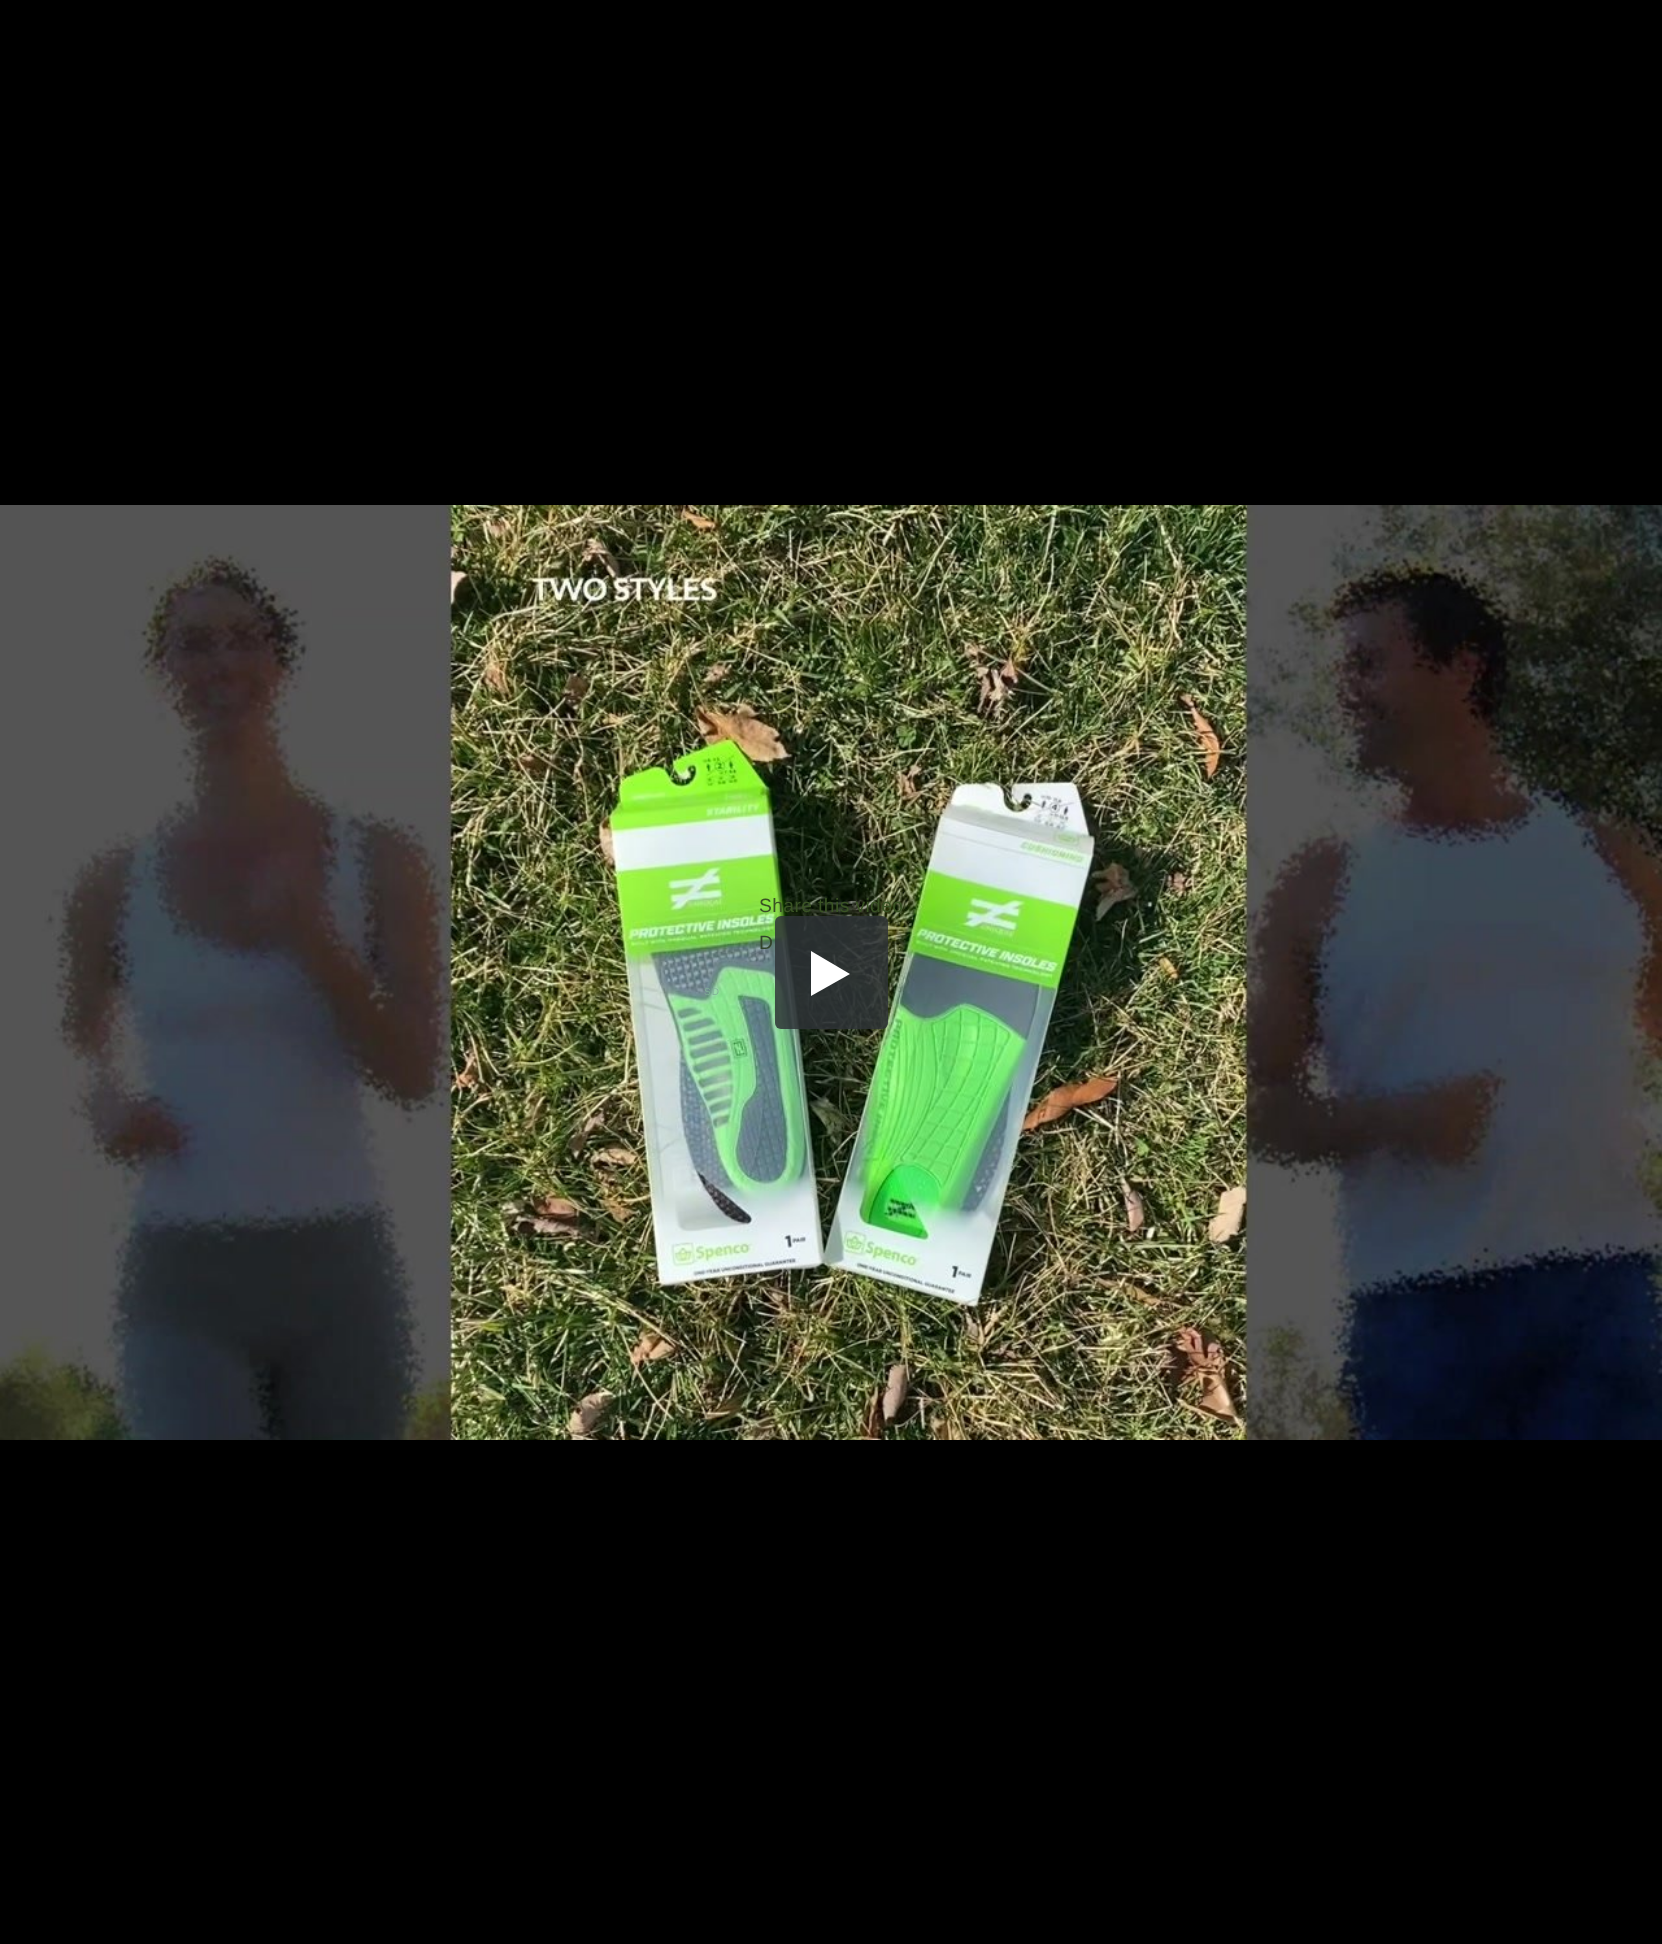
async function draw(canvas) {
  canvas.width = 1662
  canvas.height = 1944
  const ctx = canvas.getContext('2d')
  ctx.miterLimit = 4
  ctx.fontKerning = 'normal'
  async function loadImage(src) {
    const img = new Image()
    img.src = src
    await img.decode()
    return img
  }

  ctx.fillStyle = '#000'
  ctx.fillRect(0, 0, 1662, 1944)
  ctx.drawImage(await loadImage('image0.png'), 0, 505, 1662, 935)
  ctx.letterSpacing = '0.4px'
  ctx.font = '19.25px Liberation Sans'
  ctx.fillStyle = '#3a5325'
  ctx.fillText('Share this video', 759, 912)
  ctx.fillStyle = '#32442b'
  ctx.fillText('D', 759, 949)
  ctx.letterSpacing = '1px'
  ctx.font = '10px Liberation Sans'
  ctx.fillStyle = '#80af97'
  ctx.fillText('SD', 704, 995)
  ctx.fillStyle = '#2f3437d9'
  ctx.beginPath()
  ctx.roundRect(775, 916, 113, 113, 6)
  ctx.fill()
  ctx.fillStyle = '#fff'
  ctx.beginPath()
  ctx.moveTo(811, 951)
  ctx.lineTo(811, 996)
  ctx.lineTo(850, 974)
  ctx.closePath()
  ctx.fill()
}

draw(document.querySelector('canvas'))
